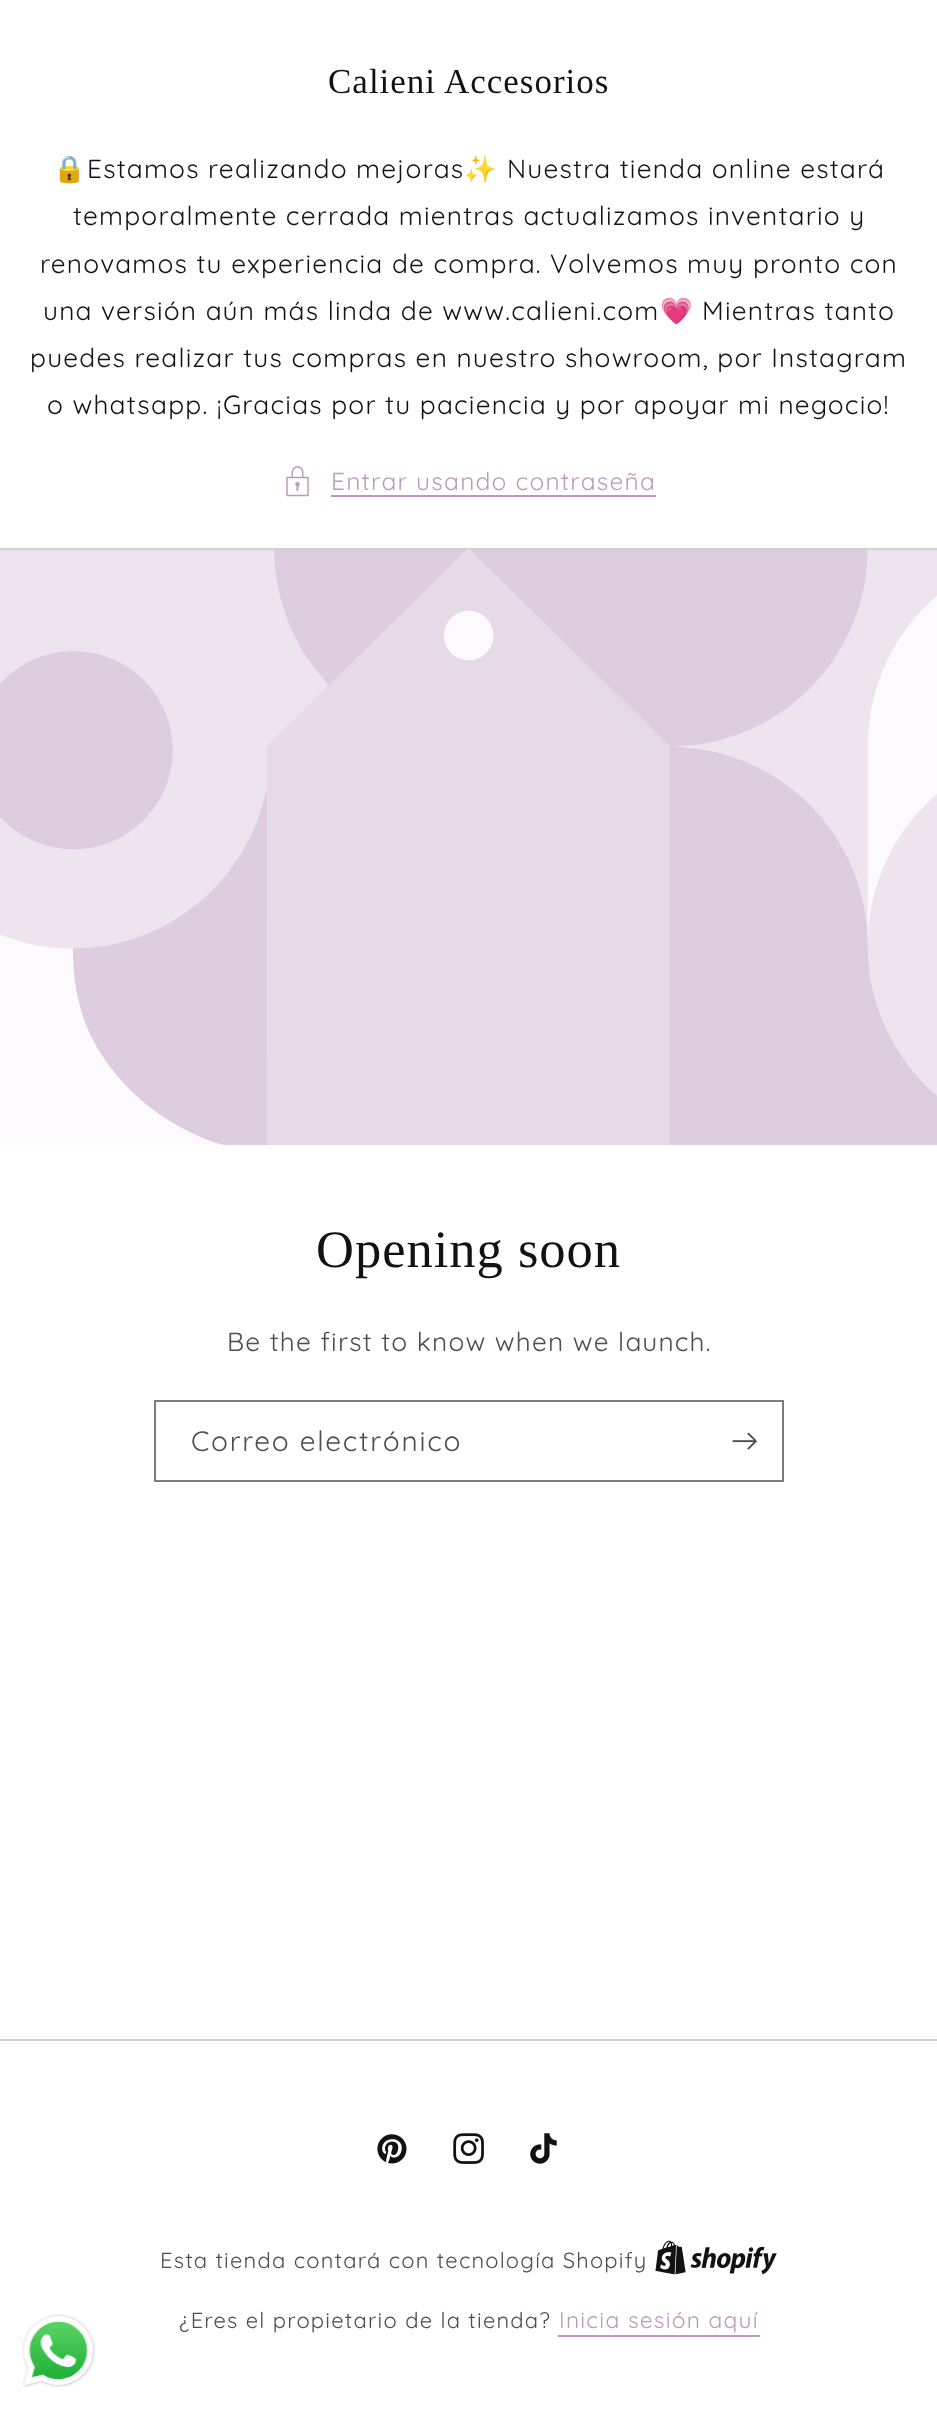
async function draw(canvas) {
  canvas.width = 937
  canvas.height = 2409
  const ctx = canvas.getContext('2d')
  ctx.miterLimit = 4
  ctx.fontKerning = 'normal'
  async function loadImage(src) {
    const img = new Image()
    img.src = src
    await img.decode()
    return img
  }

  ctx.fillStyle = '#fff'
  ctx.fillRect(0, 0, 937, 2409)
  ctx.letterSpacing = '1px'
  ctx.font = '35px Liberation Serif'
  ctx.fillStyle = '#121212'
  ctx.fillText('Calieni Accesorios', 328, 93)
  ctx.letterSpacing = '1.22px'
  ctx.font = '26.25px Noto Color Emoji'
  ctx.fillText('🔒', 53, 178)
  ctx.font = '26.25px Quicksand'
  ctx.fillText('Estamos realizando mejoras', 87, 178)
  ctx.font = '26.25px Noto Color Emoji'
  ctx.fillText('✨', 464, 178)
  ctx.font = '26.25px Quicksand'
  ctx.fillText('Nuestra tienda online estará', 507, 178)
  ctx.fillText('temporalmente cerrada mientras actualizamos inventario y', 73, 225)
  ctx.fillText('renovamos tu experiencia de compra. Volvemos muy pronto con', 40, 273)
  ctx.fillText('una versión aún más linda de www.calieni.com', 43, 320)
  ctx.font = '26.25px Noto Color Emoji'
  ctx.fillText('💗', 660, 320)
  ctx.font = '26.25px Quicksand'
  ctx.fillText('Mientras tanto', 702, 320)
  ctx.fillText('puedes realizar tus compras en nuestro showroom, por Instagram', 30, 367)
  ctx.fillText('o whatsapp. ¡Gracias por tu paciencia y por apoyar mi negocio!', 47, 414)
  ctx.drawImage(await loadImage('image0.png'), 286, 466, 23, 31)
  ctx.font = '24.5px Quicksand'
  ctx.fillStyle = '#be99bf'
  ctx.fillText('Entrar usando contraseña', 331, 490)
  ctx.fillRect(331, 495, 325, 2)
  ctx.fillStyle = '#d0d0d0'
  ctx.fillRect(0, 548, 937, 2)
  ctx.drawImage(await loadImage('image1.png'), 0, 550, 937, 595)
  ctx.letterSpacing = '1px'
  ctx.font = '52.5px Liberation Serif'
  ctx.fillStyle = '#121212'
  ctx.fillText('Opening soon', 316, 1267)
  ctx.letterSpacing = '1.22px'
  ctx.font = '26.25px Quicksand'
  ctx.fillStyle = '#4d4d4d'
  ctx.fillText('Be the first to know when we launch.', 227, 1351)
  ctx.strokeStyle = '#7d7d7d'
  ctx.lineWidth = 2
  ctx.strokeRect(155, 1401, 628, 80)
  ctx.letterSpacing = '1.75px'
  ctx.font = '28px Quicksand'
  ctx.fillText('Correo electrónico', 191, 1451)
  ctx.drawImage(await loadImage('image2.png'), 732, 1432, 25, 18)
  ctx.fillStyle = '#d0d0d0'
  ctx.fillRect(0, 2039, 937, 2)
  ctx.drawImage(await loadImage('image3.png'), 377, 2134, 30, 30)
  ctx.drawImage(await loadImage('image4.png'), 453, 2133, 31, 31)
  ctx.drawImage(await loadImage('image5.png'), 530, 2133, 27, 31)
  ctx.letterSpacing = '1.22px'
  ctx.font = '21.9px Quicksand'
  ctx.fillStyle = '#4d4d4d'
  ctx.fillText('Esta tienda contará con tecnología Shopify', 160, 2268)
  ctx.drawImage(await loadImage('image6.png'), 655, 2240, 122, 35)
  ctx.fillText('¿Eres el propietario de la tienda?', 179, 2328)
  ctx.font = '22.75px Quicksand'
  ctx.fillStyle = '#be99bf'
  ctx.fillText('Inicia sesión aquí', 559, 2328)
  ctx.fillRect(558, 2335, 202, 2)
  ctx.drawImage(await loadImage('image7.png'), 22, 2314, 74, 74)
}

draw(document.querySelector('canvas'))
